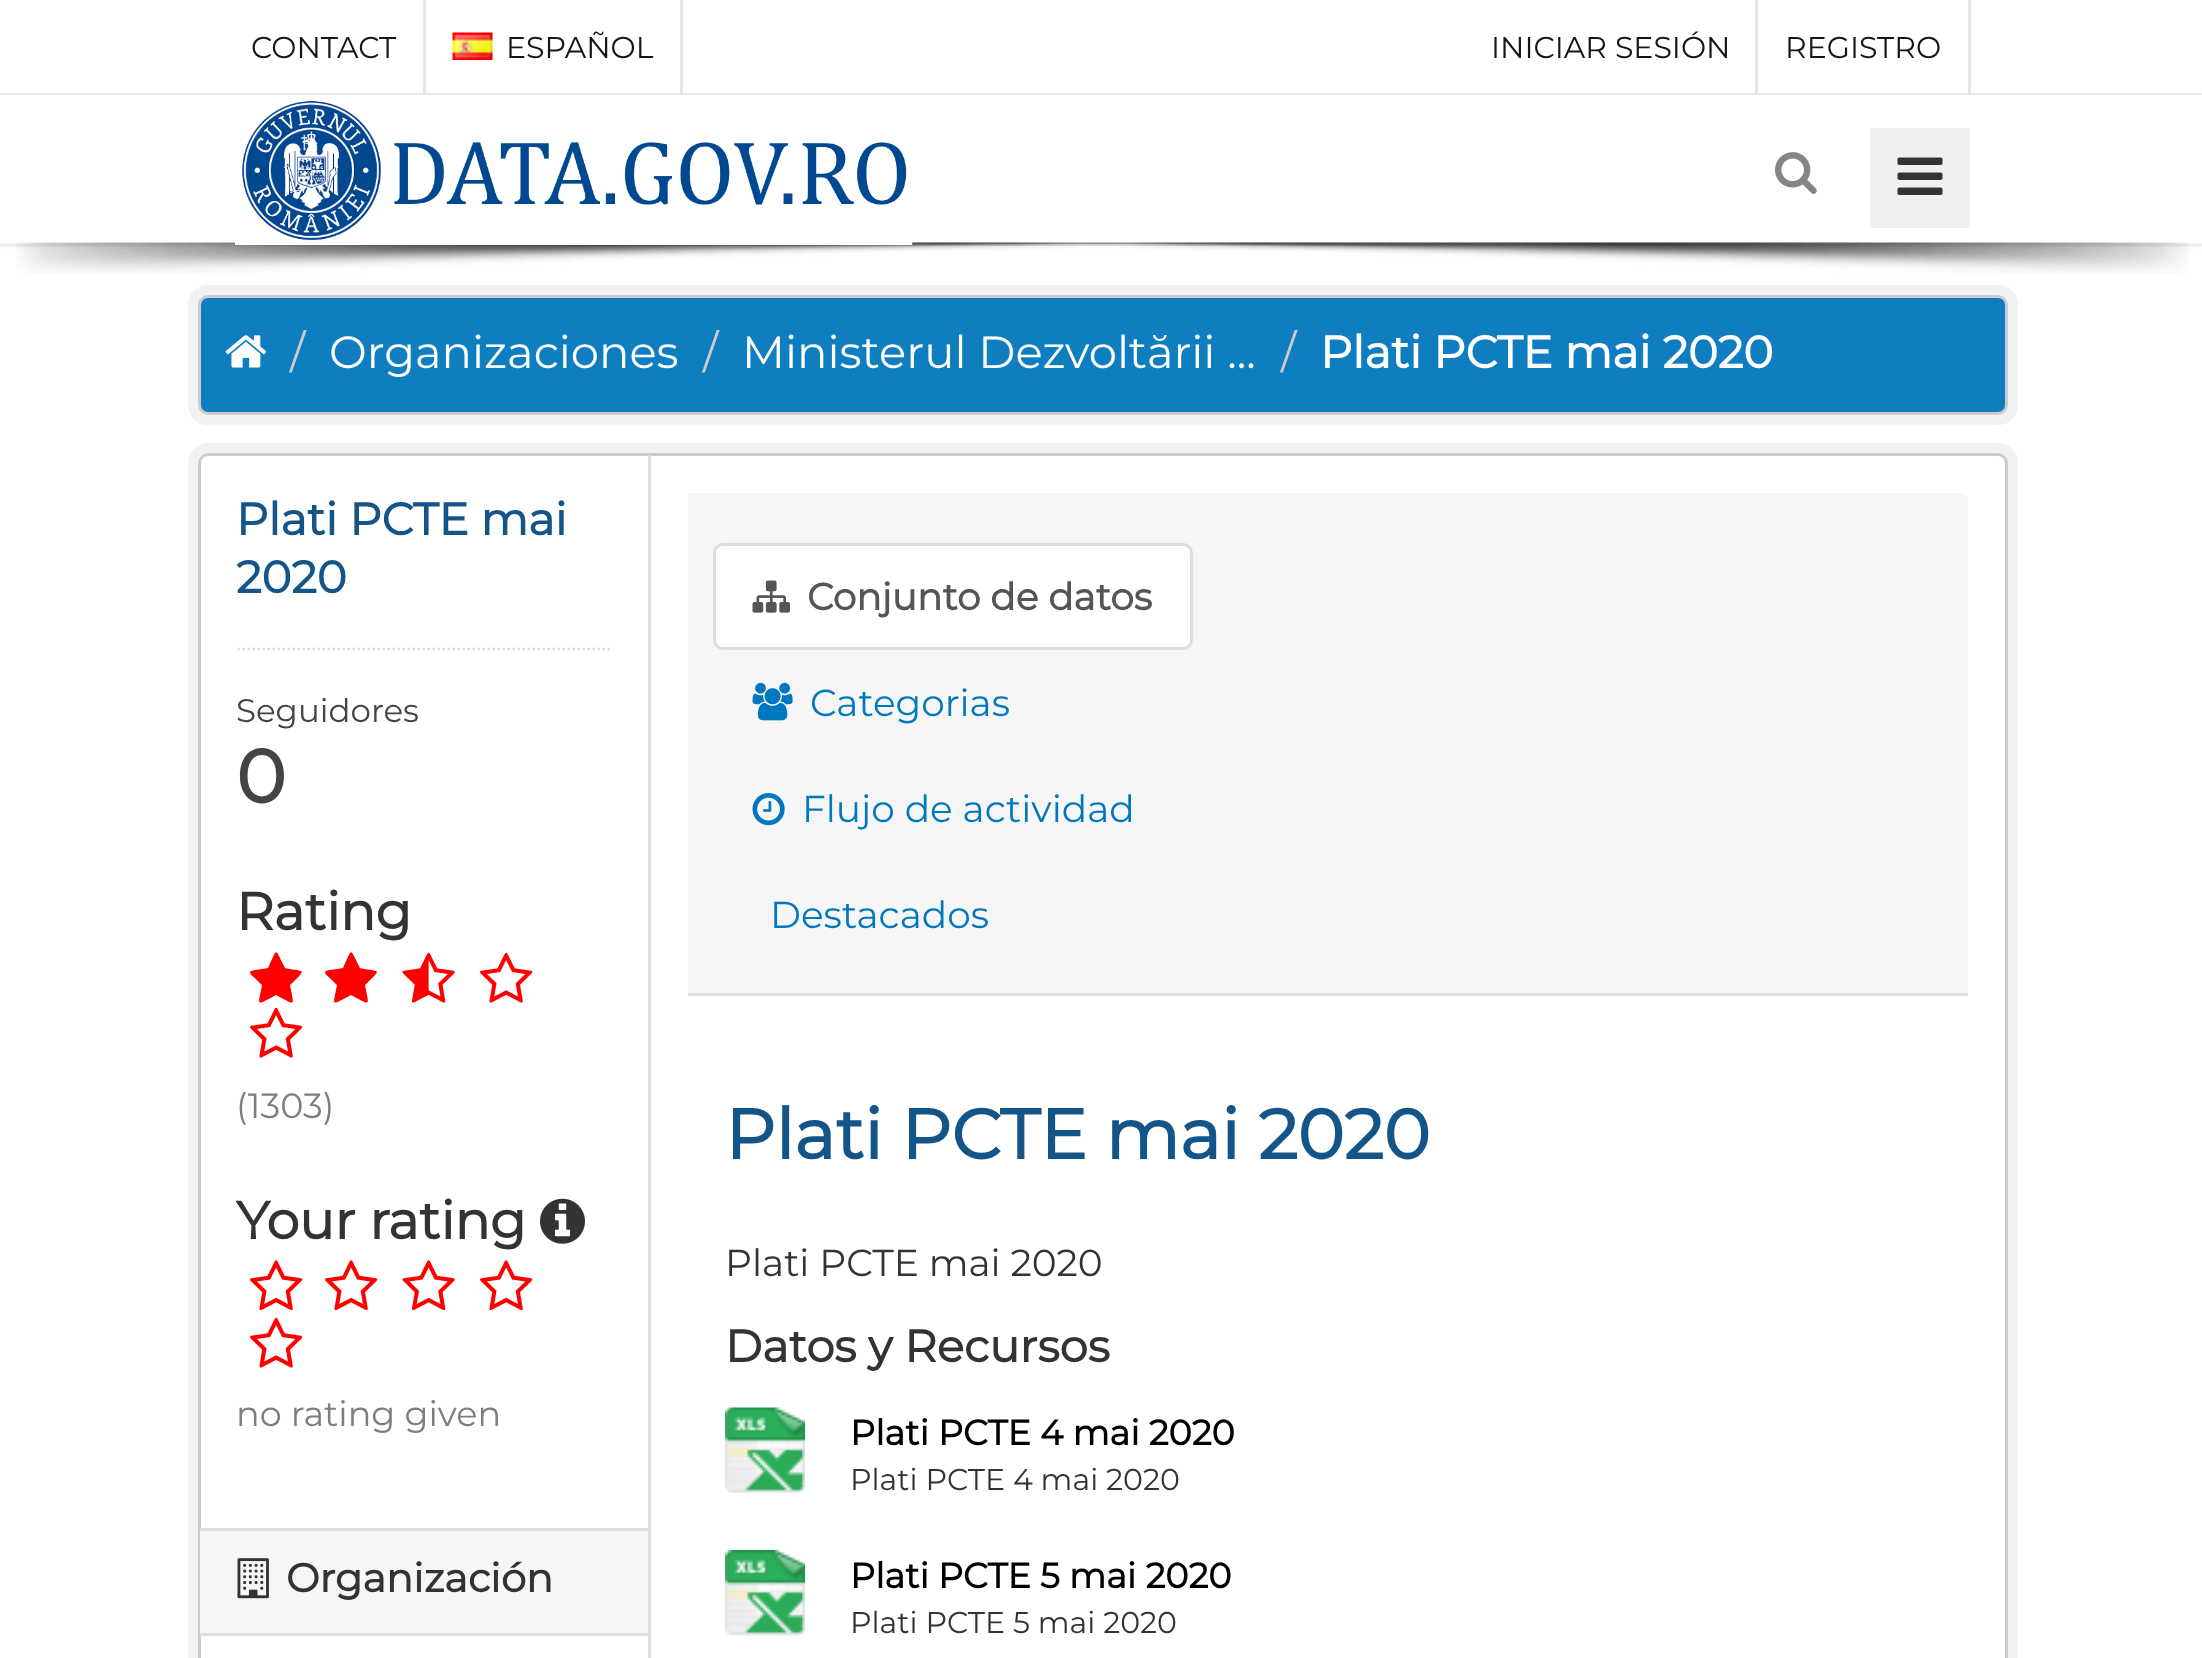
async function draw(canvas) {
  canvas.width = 2202
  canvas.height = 1658
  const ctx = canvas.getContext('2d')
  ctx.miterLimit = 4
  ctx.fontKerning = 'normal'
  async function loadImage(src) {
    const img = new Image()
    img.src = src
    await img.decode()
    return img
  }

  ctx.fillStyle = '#fff'
  ctx.fillRect(0, 0, 2202, 1658)
  ctx.fillStyle = '#f2f2f2'
  ctx.fillRect(0, 93, 2202, 2)
  ctx.fillStyle = '#e6e6e6'
  ctx.fillRect(423, 0, 3, 93)
  ctx.font = '100 30px Montserrat'
  ctx.fillStyle = '#151515'
  ctx.fillText('CONTACT', 251, 58)
  ctx.fillStyle = '#e6e6e6'
  ctx.fillRect(680, 0, 3, 93)
  ctx.drawImage(await loadImage('image0.png'), 452, 32, 41, 28)
  ctx.fillStyle = '#151515'
  ctx.fillText('ESPAÑOL', 506, 58)
  ctx.fillStyle = '#e6e6e6'
  ctx.fillRect(1755, 0, 3, 93)
  ctx.fillStyle = '#151515'
  ctx.fillText('INICIAR SESIÓN', 1491, 58)
  ctx.fillStyle = '#e6e6e6'
  ctx.fillRect(1968, 0, 3, 93)
  ctx.fillStyle = '#151515'
  ctx.fillText('REGISTRO', 1785, 58)
  ctx.fillStyle = '#0000001a'
  ctx.filter = 'blur(2.5px)'
  ctx.beginPath()
  ctx.rect(0, 95, 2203, 150)
  ctx.fill()
  ctx.filter = 'none'
  ctx.fillStyle = '#fff'
  ctx.fillRect(0, 95, 2202, 150)
  ctx.fillStyle = '#0000000d'
  ctx.fillRect(0, 243, 2202, 3)
  ctx.drawImage(await loadImage('image4.png'), 16, 242, 2173, 32)
  ctx.drawImage(await loadImage('image1.png'), 235, 101, 678, 144)
  ctx.drawImage(await loadImage('image2.png'), 1775, 152, 42, 42)
  ctx.fillStyle = '#efefef'
  ctx.fillRect(1870, 128, 100, 100)
  ctx.drawImage(await loadImage('image3.png'), 1897, 157, 46, 38)
  ctx.beginPath()
  ctx.roundRect(193, 290, 1820, 130, 15)
  ctx.strokeStyle = '#f2f2f2'
  ctx.lineWidth = 10
  ctx.stroke()
  ctx.fillStyle = '#0e7ec1'
  ctx.beginPath()
  ctx.roundRect(199.5, 296.5, 1807, 117, 8.5)
  ctx.fill()
  ctx.strokeStyle = '#ccc'
  ctx.lineWidth = 3
  ctx.stroke()
  ctx.drawImage(await loadImage('image5.png'), 225, 335, 42, 33)
  ctx.font = '100 45px Montserrat'
  ctx.fillStyle = '#ccc'
  ctx.fillText('/', 290, 368)
  ctx.fillStyle = '#fff'
  ctx.fillText('Organizaciones', 329, 368)
  ctx.fillStyle = '#ccc'
  ctx.fillText('/', 703, 368)
  ctx.fillStyle = '#fff'
  ctx.fillText('Ministerul Dezvoltării ...', 742, 368)
  ctx.fillStyle = '#ccc'
  ctx.fillText('/', 1281, 368)
  ctx.font = 'bold 45px Montserrat'
  ctx.fillStyle = '#fff'
  ctx.fillText('Plati PCTE mai 2020', 1320, 368)
  ctx.beginPath()
  ctx.roundRect(193, 448, 1820, 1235, 15)
  ctx.strokeStyle = '#f2f2f2'
  ctx.lineWidth = 10
  ctx.stroke()
  ctx.beginPath()
  ctx.roundRect(199.5, 454.5, 1807, 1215, 8.5)
  ctx.fill()
  ctx.strokeStyle = '#ccc'
  ctx.lineWidth = 3
  ctx.stroke()
  ctx.fillStyle = '#135589'
  ctx.fillText('Plati PCTE mai', 236, 535)
  ctx.fillText('2020', 236, 593)
  ctx.beginPath()
  ctx.moveTo(237.5, 649)
  ctx.lineTo(610, 649)
  ctx.strokeStyle = '#ddd'
  ctx.lineWidth = 2.5
  ctx.setLineDash([2.5, 2.5])
  ctx.stroke()
  ctx.font = '100 32.5px Montserrat'
  ctx.fillStyle = '#444'
  ctx.fillText('Seguidores', 236, 722)
  ctx.font = 'bold 75px Montserrat'
  ctx.fillText('0', 236, 803)
  ctx.font = 'bold 52.5px Montserrat'
  ctx.fillStyle = '#333'
  ctx.fillText('Rating', 236, 930)
  ctx.fillStyle = '#f00'
  ctx.beginPath()
  ctx.moveTo(302, 972)
  ctx.bezierCurveTo(302, 974, 292, 983, 290, 985)
  ctx.bezierCurveTo(294, 1007, 297, 1006, 276, 995)
  ctx.bezierCurveTo(255, 1006, 258, 1007, 262, 985)
  ctx.bezierCurveTo(246, 969, 244, 972, 268, 968)
  ctx.bezierCurveTo(278, 947, 274, 947, 285, 968)
  ctx.bezierCurveTo(287, 969, 302, 970, 302, 972)
  ctx.closePath()
  ctx.fill()
  ctx.beginPath()
  ctx.moveTo(377, 972)
  ctx.bezierCurveTo(377, 974, 367, 983, 365, 985)
  ctx.bezierCurveTo(369, 1007, 372, 1006, 351, 995)
  ctx.bezierCurveTo(330, 1006, 333, 1007, 337, 985)
  ctx.bezierCurveTo(321, 969, 319, 972, 343, 968)
  ctx.bezierCurveTo(353, 947, 349, 947, 360, 968)
  ctx.bezierCurveTo(362, 969, 377, 970, 377, 972)
  ctx.closePath()
  ctx.fill()
  ctx.drawImage(await loadImage('image6.png'), 402, 952, 53, 51)
  ctx.drawImage(await loadImage('image7.png'), 480, 952, 53, 51)
  ctx.drawImage(await loadImage('image7.png'), 250, 1007, 53, 51)
  ctx.font = '100 35px Montserrat'
  ctx.fillStyle = '#7c7c82'
  ctx.fillText('(1303)', 236, 1118)
  ctx.font = 'bold 52.5px Montserrat'
  ctx.fillStyle = '#333'
  ctx.fillText('Your rating', 236, 1239)
  ctx.drawImage(await loadImage('image8.png'), 540, 1198, 45, 46)
  ctx.drawImage(await loadImage('image9.png'), 250, 1260, 53, 51)
  ctx.drawImage(await loadImage('image9.png'), 325, 1260, 53, 51)
  ctx.drawImage(await loadImage('image10.png'), 402, 1260, 53, 51)
  ctx.drawImage(await loadImage('image9.png'), 480, 1260, 53, 51)
  ctx.drawImage(await loadImage('image7.png'), 250, 1317, 53, 51)
  ctx.font = '100 35px Montserrat'
  ctx.fillStyle = '#7c7c82'
  ctx.fillText('no rating given', 236, 1426)
  ctx.fillStyle = '#f6f6f6'
  ctx.fillRect(200, 1531, 448, 102)
  ctx.fillStyle = '#ddd'
  ctx.fillRect(200, 1528, 448, 3)
  ctx.fillRect(200, 1633, 448, 3)
  ctx.drawImage(await loadImage('image11.png'), 237, 1558, 32, 41)
  ctx.font = 'bold 40px Montserrat'
  ctx.fillStyle = '#333'
  ctx.fillText('Organización', 286, 1592)
  ctx.fillStyle = '#ddd'
  ctx.fillRect(648, 455, 3, 1203)
  ctx.fillStyle = '#f6f6f6'
  ctx.beginPath()
  ctx.roundRect(688, 493, 1280, 502, [0, 8, 0, 0])
  ctx.fill()
  ctx.fillStyle = '#ddd'
  ctx.fillRect(688, 993, 1280, 3)
  ctx.fillStyle = '#fff'
  ctx.beginPath()
  ctx.roundRect(714.5, 544.5, 477, 104, 8.5)
  ctx.fill()
  ctx.lineWidth = 3
  ctx.setLineDash([])
  ctx.stroke()
  ctx.drawImage(await loadImage('image12.png'), 752, 580, 38, 33)
  ctx.font = 'bold 37.5px Montserrat'
  ctx.fillStyle = '#555'
  ctx.fillText('Conjunto de datos', 807, 610)
  ctx.drawImage(await loadImage('image13.png'), 752, 682, 41, 39)
  ctx.font = '100 37.5px Montserrat'
  ctx.fillStyle = '#0077be'
  ctx.fillText('Categorias', 810, 716)
  ctx.drawImage(await loadImage('image14.png'), 752, 793, 33, 33)
  ctx.fillText('Flujo de actividad', 802, 822)
  ctx.fillText('Destacados', 770, 928)
  ctx.font = 'bold 70px Montserrat'
  ctx.fillStyle = '#135589'
  ctx.fillText('Plati PCTE mai 2020', 725, 1159)
  ctx.font = '100 37.5px Montserrat'
  ctx.fillStyle = '#333'
  ctx.fillText('Plati PCTE mai 2020', 725, 1276)
  ctx.font = 'bold 45px Montserrat'
  ctx.fillText('Datos y Recursos', 725, 1362)
  ctx.drawImage(await loadImage('image15.png'), 725, 1407, 80, 86)
  ctx.font = 'bold 35px Montserrat'
  ctx.fillStyle = '#000'
  ctx.fillText('Plati PCTE 4 mai 2020', 850, 1445)
  ctx.font = '100 30px Montserrat'
  ctx.fillStyle = '#333'
  ctx.fillText('Plati PCTE 4 mai 2020', 850, 1490)
  ctx.drawImage(await loadImage('image16.png'), 725, 1550, 80, 86)
  ctx.font = 'bold 35px Montserrat'
  ctx.fillStyle = '#000'
  ctx.fillText('Plati PCTE 5 mai 2020', 850, 1588)
  ctx.font = '100 30px Montserrat'
  ctx.fillStyle = '#333'
  ctx.fillText('Plati PCTE 5 mai 2020', 850, 1633)
}

draw(document.querySelector('canvas'))
